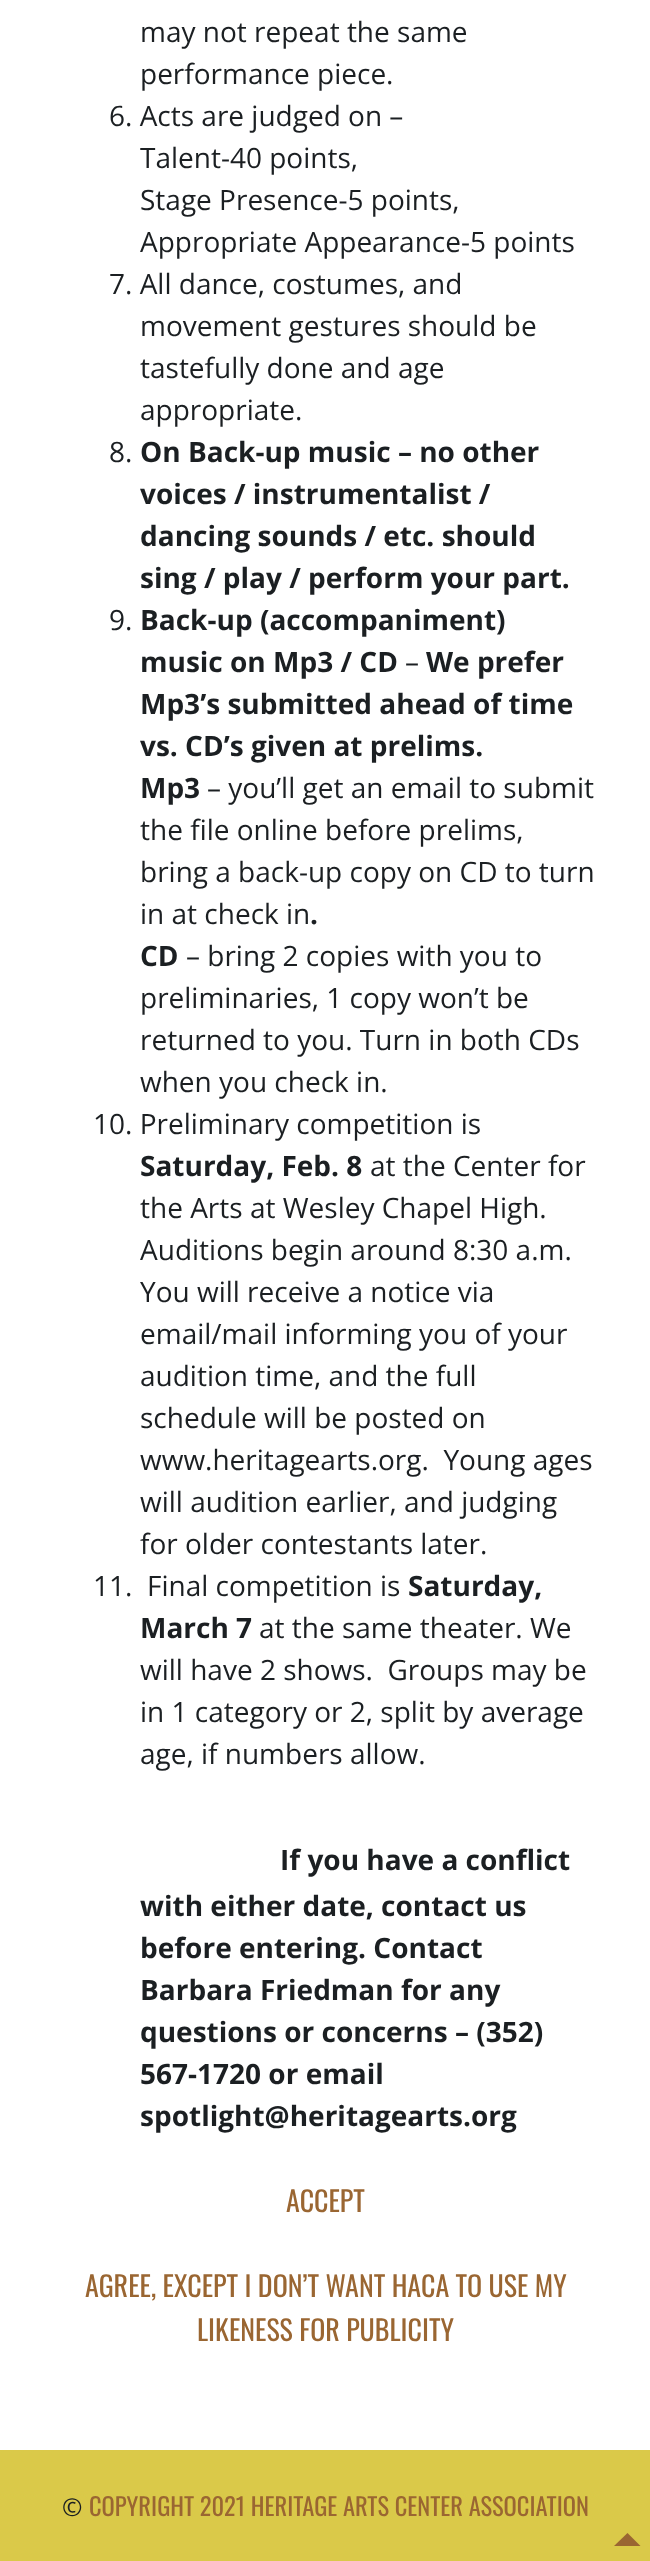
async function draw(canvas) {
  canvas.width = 650
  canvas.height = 2561
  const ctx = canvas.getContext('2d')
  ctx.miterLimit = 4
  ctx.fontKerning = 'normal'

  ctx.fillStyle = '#fff'
  ctx.fillRect(0, 0, 650, 2561)
  ctx.font = '28px Open Sans'
  ctx.fillStyle = '#1b1f22'
  ctx.fillText('may not repeat the same', 140, 42)
  ctx.fillText('performance piece.', 140, 84)
  ctx.fillText('6. Acts are judged on –', 109, 126)
  ctx.fillText('Talent-40 points,', 140, 168)
  ctx.fillText('Stage Presence-5 points,', 140, 210)
  ctx.fillText('Appropriate Appearance-5 points', 140, 252)
  ctx.fillText('7. All dance, costumes, and', 109, 294)
  ctx.fillText('movement gestures should be', 140, 336)
  ctx.fillText('tastefully done and age', 140, 378)
  ctx.fillText('appropriate.', 140, 420)
  ctx.fillText('8.', 109, 462)
  ctx.font = 'bold 28px Open Sans'
  ctx.fillText('On Back-up music – no other', 140, 462)
  ctx.fillText('voices / instrumentalist /', 140, 504)
  ctx.fillText('dancing sounds / etc. should', 140, 546)
  ctx.fillText('sing / play / perform your part.', 140, 588)
  ctx.font = '28px Open Sans'
  ctx.fillText('9.', 109, 630)
  ctx.font = 'bold 28px Open Sans'
  ctx.fillText('Back-up (accompaniment)', 140, 630)
  ctx.fillText('music on Mp3 / CD', 140, 672)
  ctx.font = '28px Open Sans'
  ctx.fillText('–', 405, 672)
  ctx.font = 'bold 28px Open Sans'
  ctx.fillText('We prefer', 426, 672)
  ctx.fillText('Mp3’s submitted ahead of time', 140, 714)
  ctx.fillText('vs. CD’s given at prelims.', 140, 756)
  ctx.fillText('Mp3', 140, 798)
  ctx.font = '28px Open Sans'
  ctx.fillText('– you’ll get an email to submit', 207, 798)
  ctx.fillText('the file online before prelims,', 140, 840)
  ctx.fillText('bring a back-up copy on CD to turn', 140, 882)
  ctx.fillText('in at check in', 140, 924)
  ctx.font = 'bold 28px Open Sans'
  ctx.fillText('.', 310, 924)
  ctx.fillText('CD', 140, 966)
  ctx.font = '28px Open Sans'
  ctx.fillText('– bring 2 copies with you to', 186, 966)
  ctx.fillText('preliminaries, 1 copy won’t be', 140, 1008)
  ctx.fillText('returned to you. Turn in both CDs', 140, 1050)
  ctx.fillText('when you check in.', 140, 1092)
  ctx.fillText('10. Preliminary competition is', 93, 1134)
  ctx.font = 'bold 28px Open Sans'
  ctx.fillText('Saturday, Feb. 8', 140, 1176)
  ctx.font = '28px Open Sans'
  ctx.fillText('at the Center for', 370, 1176)
  ctx.fillText('the Arts at Wesley Chapel High.', 140, 1218)
  ctx.fillText('Auditions begin around 8:30 a.m.', 140, 1260)
  ctx.fillText('You will receive a notice via', 140, 1302)
  ctx.fillText('email/mail informing you of your', 140, 1344)
  ctx.fillText('audition time, and the full', 140, 1386)
  ctx.fillText('schedule will be posted on', 140, 1428)
  ctx.fillText('www.heritagearts.org.  Young ages', 140, 1470)
  ctx.fillText('will audition earlier, and judging', 140, 1512)
  ctx.fillText('for older contestants later.', 140, 1554)
  ctx.fillText('11.', 93, 1596)
  ctx.fillText('Final competition is', 147, 1596)
  ctx.font = 'bold 28px Open Sans'
  ctx.fillText('Saturday,', 408, 1596)
  ctx.fillText('March 7', 140, 1638)
  ctx.font = '28px Open Sans'
  ctx.fillText('at the same theater. We', 259, 1638)
  ctx.fillText('will have 2 shows.  Groups may be', 140, 1680)
  ctx.fillText('in 1 category or 2, split by average', 140, 1722)
  ctx.fillText('age, if numbers allow.', 140, 1764)
  ctx.font = 'bold 28px Open Sans'
  ctx.fillText('If you have a conflict', 280, 1870)
  ctx.fillText('with either date, contact us', 140, 1916)
  ctx.fillText('before entering. Contact', 140, 1958)
  ctx.fillText('Barbara Friedman for any', 140, 2000)
  ctx.fillText('questions or concerns – (352)', 140, 2042)
  ctx.fillText('567-1720 or email', 140, 2084)
  ctx.fillText('spotlight@heritagearts.org', 140, 2126)
  ctx.font = '28px Oswald'
  ctx.fillStyle = '#9a6632'
  ctx.fillText('ACCEPT', 286, 2212)
  ctx.fillText('AGREE, EXCEPT I DON’T WANT HACA TO USE MY', 85, 2297)
  ctx.fillText('LIKENESS FOR PUBLICITY', 197, 2341)
  ctx.fillStyle = '#dac949'
  ctx.fillRect(0, 2450, 650, 111)
  ctx.font = '24.5px Open Sans'
  ctx.fillStyle = '#1b1f22'
  ctx.fillText('©', 62, 2516)
  ctx.font = '24.5px Oswald'
  ctx.fillStyle = '#9a6632'
  ctx.fillText('COPYRIGHT 2021 HERITAGE ARTS CENTER ASSOCIATION', 89, 2516)
  ctx.beginPath()
  ctx.moveTo(640.5, 2546)
  ctx.lineTo(614, 2546)
  ctx.lineTo(627.5, 2533)
  ctx.closePath()
  ctx.fill()
}

draw(document.querySelector('canvas'))
